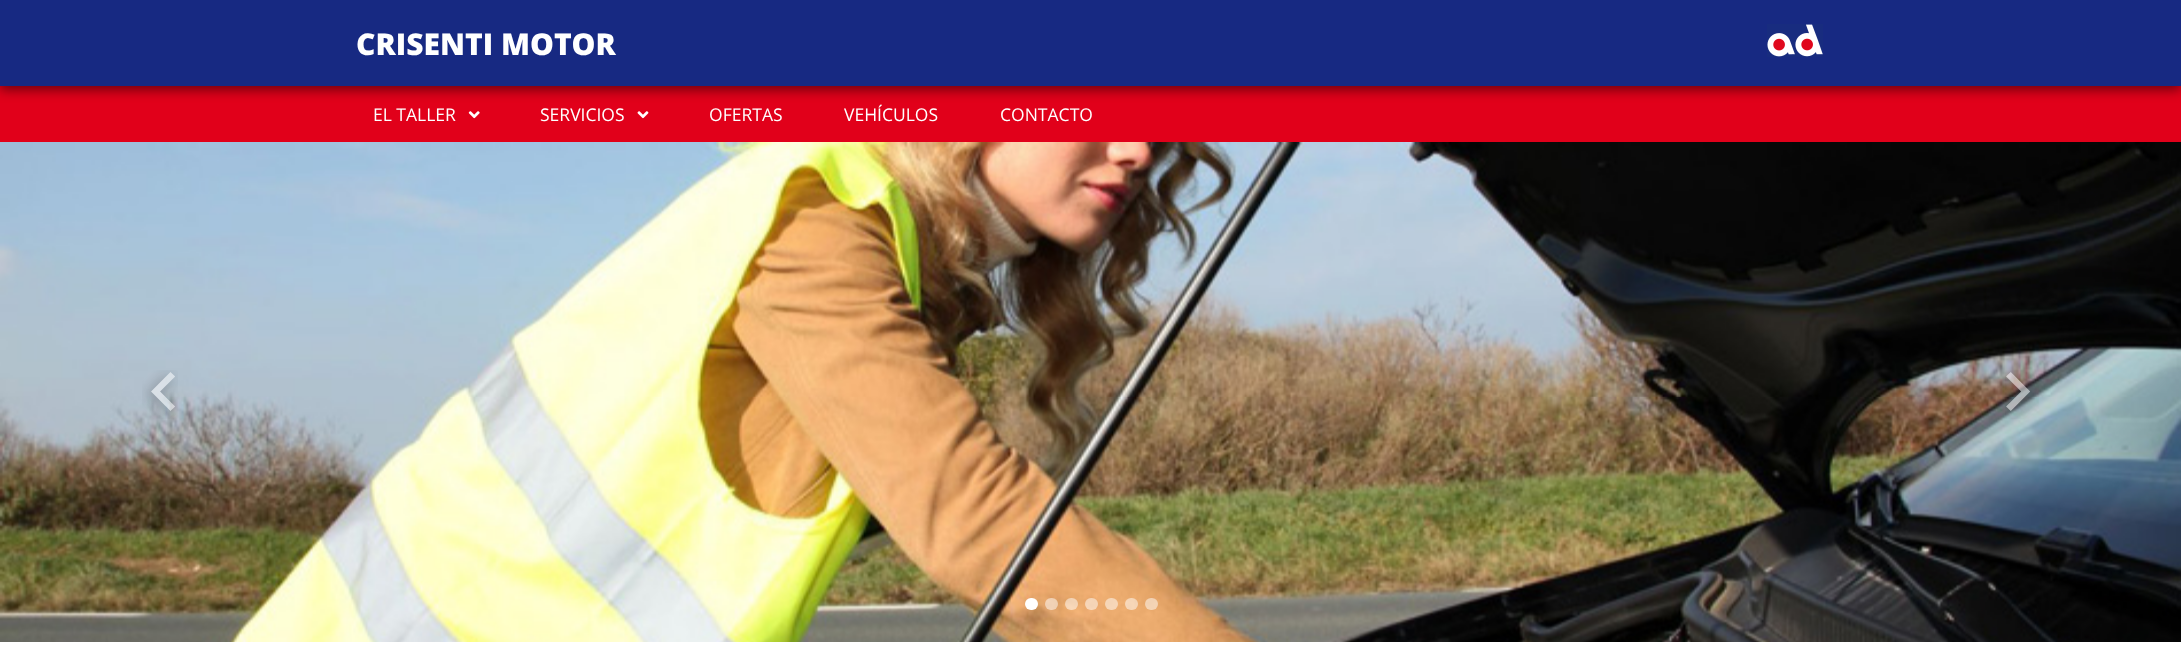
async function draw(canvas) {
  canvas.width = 2181
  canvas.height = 656
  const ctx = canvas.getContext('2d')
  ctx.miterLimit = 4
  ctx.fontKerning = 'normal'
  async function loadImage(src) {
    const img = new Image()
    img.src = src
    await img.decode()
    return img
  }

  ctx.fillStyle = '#fff'
  ctx.fillRect(0, 0, 2181, 656)
  ctx.fillStyle = '#e1001a'
  ctx.fillRect(0, 86, 2181, 56)
  ctx.fillStyle = '#00000080'
  ctx.filter = 'blur(6px)'
  ctx.beginPath()
  ctx.rect(0, 4, 2181, 86)
  ctx.fill()
  ctx.filter = 'none'
  ctx.fillStyle = '#172982'
  ctx.fillRect(0, 0, 2181, 86)
  ctx.font = '800 30px Open Sans'
  ctx.fillStyle = '#fff'
  ctx.fillText('CRISENTI MOTOR', 356, 55)
  ctx.drawImage(await loadImage('image0.png'), 1767, 24, 56, 33)
  ctx.font = '17.5px Open Sans'
  ctx.fillText('EL TALLER', 373, 121)
  ctx.drawImage(await loadImage('image1.png'), 468, 111, 12, 8)
  ctx.fillText('SERVICIOS', 540, 121)
  ctx.drawImage(await loadImage('image2.png'), 637, 111, 12, 8)
  ctx.fillText('OFERTAS', 709, 121)
  ctx.fillText('VEHÍCULOS', 844, 121)
  ctx.fillText('CONTACTO', 1000, 121)
  ctx.drawImage(await loadImage('image3.png'), 0, 142, 2181, 500)
  ctx.drawImage(await loadImage('image4.png'), 142, 370, 36, 49)
  ctx.drawImage(await loadImage('image5.png'), 2005, 370, 34, 49)
  ctx.beginPath()
  ctx.roundRect(1025, 598, 13, 12, 6)
  ctx.fill()
  ctx.fillStyle = '#ffffff80'
  ctx.beginPath()
  ctx.roundRect(1045, 598, 13, 12, 6)
  ctx.fill()
  ctx.beginPath()
  ctx.roundRect(1065, 598, 13, 12, 6)
  ctx.fill()
  ctx.beginPath()
  ctx.roundRect(1085, 598, 13, 12, 6)
  ctx.fill()
  ctx.beginPath()
  ctx.roundRect(1105, 598, 13, 12, 6)
  ctx.fill()
  ctx.beginPath()
  ctx.roundRect(1125, 598, 13, 12, 6)
  ctx.fill()
  ctx.beginPath()
  ctx.roundRect(1145, 598, 13, 12, 6)
  ctx.fill()
}

draw(document.querySelector('canvas'))
